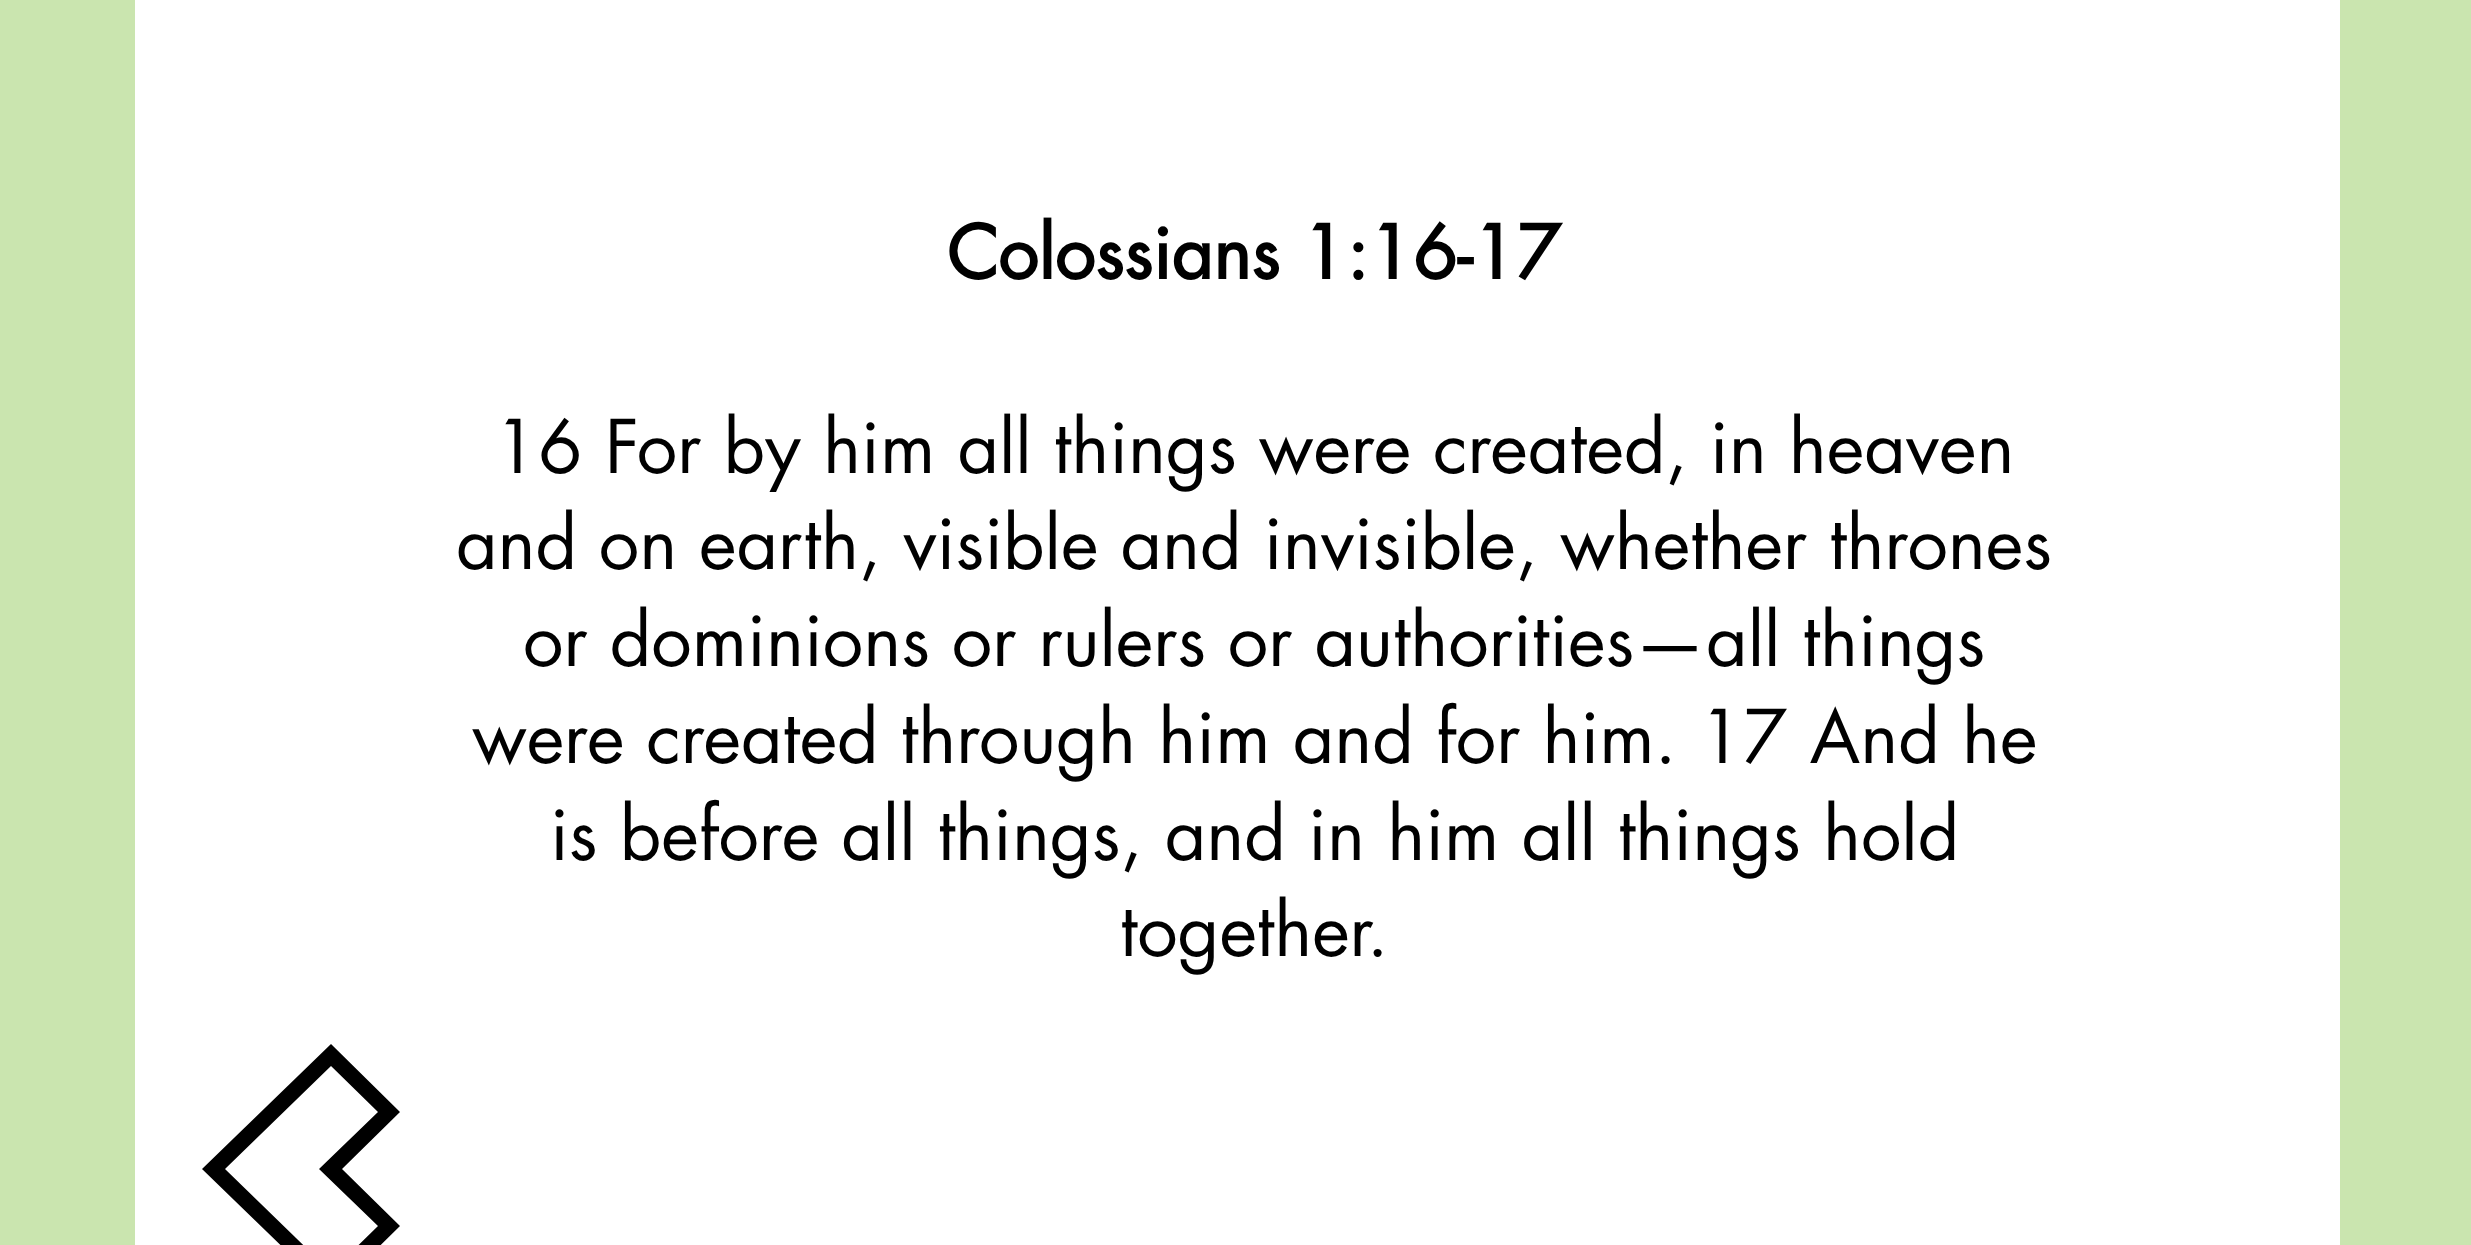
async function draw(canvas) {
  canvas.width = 2471
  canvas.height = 1245
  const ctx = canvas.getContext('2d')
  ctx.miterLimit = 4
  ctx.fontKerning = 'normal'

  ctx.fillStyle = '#cae5af'
  ctx.fillRect(0, 0, 2471, 1245)
  ctx.fillStyle = '#fff'
  ctx.fillRect(135, 0, 2205, 1245)
  ctx.font = 'bold 72px futura'
  ctx.fillStyle = '#000'
  ctx.fillText('Colossians 1:16-17', 947, 279)
  ctx.font = '72px futura'
  ctx.fillText('16 For by him all things were created, in heaven', 494, 473)
  ctx.fillText('and on earth, visible and invisible, whether thrones', 456, 569)
  ctx.fillText('or dominions or rulers or authorities—all things', 523, 666)
  ctx.fillText('were created through him and for him. 17 And he', 472, 763)
  ctx.fillText('is before all things, and in him all things hold', 550, 860)
  ctx.fillText('together.', 1120, 956)
  ctx.beginPath()
  ctx.moveTo(400, 1112)
  ctx.lineTo(342, 1169)
  ctx.lineTo(400, 1226)
  ctx.lineTo(331, 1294)
  ctx.lineTo(202, 1169)
  ctx.lineTo(331, 1044)
  ctx.closePath()
  ctx.moveTo(319, 1169)
  ctx.lineTo(378, 1112)
  ctx.lineTo(331, 1066)
  ctx.lineTo(225, 1169)
  ctx.lineTo(331, 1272)
  ctx.lineTo(378, 1226)
  ctx.closePath()
  ctx.fill()
}

draw(document.querySelector('canvas'))
